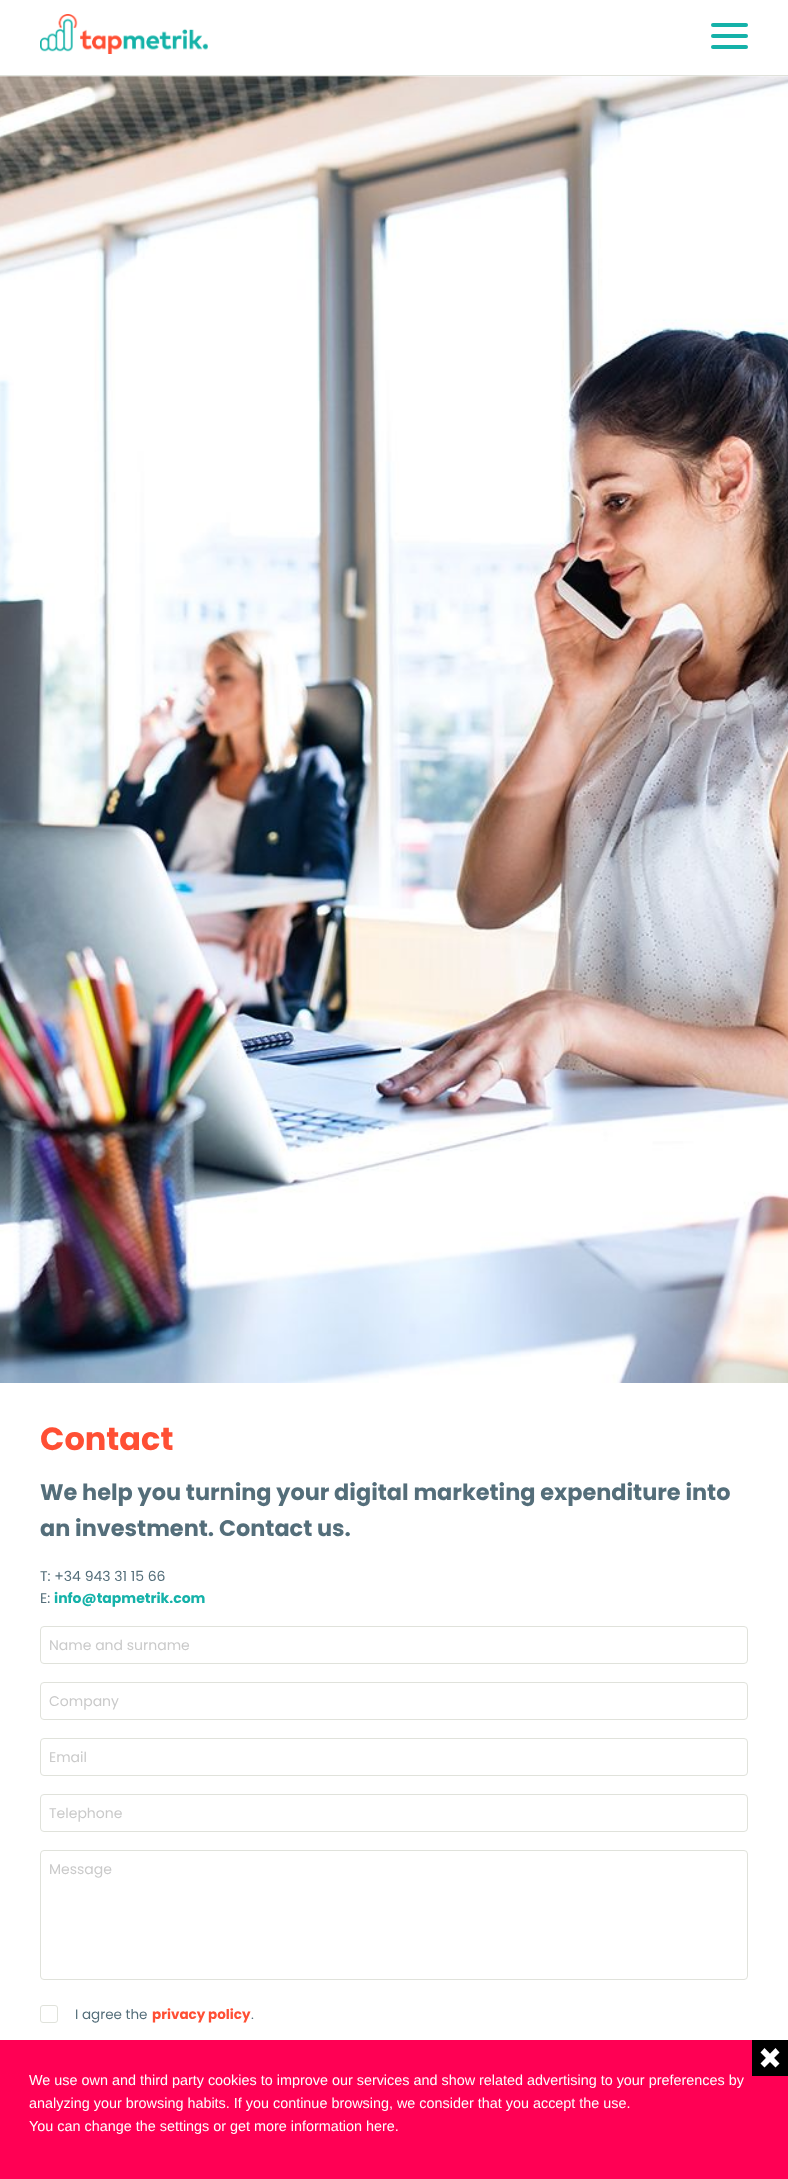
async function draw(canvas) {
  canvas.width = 788
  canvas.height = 2179
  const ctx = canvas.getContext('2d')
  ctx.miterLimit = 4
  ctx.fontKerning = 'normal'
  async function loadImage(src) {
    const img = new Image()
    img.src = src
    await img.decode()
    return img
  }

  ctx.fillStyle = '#fff'
  ctx.fillRect(0, 0, 788, 2179)
  ctx.fillStyle = '#e0e2db'
  ctx.fillRect(0, 75, 788, 1)
  ctx.drawImage(await loadImage('image0.png'), 40, 14, 168, 40)
  ctx.fillStyle = '#15b2a9'
  ctx.beginPath()
  ctx.roundRect(711, 23, 37, 4, 2)
  ctx.fill()
  ctx.beginPath()
  ctx.roundRect(711, 34, 37, 4, 2)
  ctx.fill()
  ctx.beginPath()
  ctx.roundRect(711, 45, 37, 4, 2)
  ctx.fill()
  ctx.drawImage(await loadImage('image1.png'), 0, 76, 788, 1307)
  ctx.font = 'bold 32px Poppins'
  ctx.fillStyle = '#ff4f34'
  ctx.fillText('Contact', 40, 1450)
  ctx.font = 'bold 22.4px Poppins'
  ctx.fillStyle = '#546e7a'
  ctx.fillText('We help you turning your digital marketing expenditure into', 40, 1500)
  ctx.fillText('an investment. Contact us.', 40, 1536)
  ctx.font = '14px Poppins'
  ctx.fillText('T: +34 943 31 15 66', 40, 1581)
  ctx.fillText('E:', 40, 1603)
  ctx.font = 'bold 14px Poppins'
  ctx.fillStyle = '#15b2a9'
  ctx.fillText('info@tapmetrik.com', 54, 1603)
  ctx.beginPath()
  ctx.roundRect(40.5, 1626.5, 707, 37, 3.5)
  ctx.strokeStyle = '#e0e2db'
  ctx.stroke()
  ctx.font = '14px Poppins'
  ctx.fillStyle = '#cacaca'
  ctx.fillText('Name and surname', 49, 1650)
  ctx.beginPath()
  ctx.roundRect(40.5, 1682.5, 707, 37, 3.5)
  ctx.stroke()
  ctx.fillText('Company', 49, 1706)
  ctx.beginPath()
  ctx.roundRect(40.5, 1738.5, 707, 37, 3.5)
  ctx.stroke()
  ctx.fillText('Email', 49, 1762)
  ctx.beginPath()
  ctx.roundRect(40.5, 1794.5, 707, 37, 3.5)
  ctx.stroke()
  ctx.fillText('Telephone', 49, 1818)
  ctx.beginPath()
  ctx.roundRect(40.5, 1850.5, 707, 129, 3.5)
  ctx.stroke()
  ctx.fillText('Message', 49, 1874)
  ctx.beginPath()
  ctx.roundRect(40.5, 2005.5, 17, 17, 2.5)
  ctx.stroke()
  ctx.font = '13.5px Poppins'
  ctx.fillStyle = '#546e7a'
  ctx.fillText('I agree the', 75, 2019)
  ctx.font = 'bold 13.5px Poppins'
  ctx.fillStyle = '#ff4f34'
  ctx.fillText('privacy policy', 152, 2019)
  ctx.font = '13.5px Poppins'
  ctx.fillStyle = '#546e7a'
  ctx.fillText('.', 251, 2019)
  ctx.fillStyle = '#ff0054'
  ctx.fillRect(0, 2040, 788, 139)
  ctx.fillStyle = '#000'
  ctx.fillRect(752, 2040, 36, 36)
  ctx.fillStyle = '#fff'
  ctx.beginPath()
  ctx.moveTo(764.5, 2048)
  ctx.lineTo(779.5, 2063.5)
  ctx.lineTo(775.5, 2067.5)
  ctx.lineTo(760.5, 2052.5)
  ctx.closePath()
  ctx.fill()
  ctx.beginPath()
  ctx.moveTo(760.5, 2063.5)
  ctx.lineTo(775.5, 2048)
  ctx.lineTo(779.5, 2052.5)
  ctx.lineTo(764.5, 2067.5)
  ctx.closePath()
  ctx.fill()
  ctx.font = '14.4px Liberation Sans'
  ctx.fillText('We use own and third party cookies to improve our services and show related advertising to your preferences by', 29, 2085)
  ctx.fillText('analyzing your browsing habits. If you continue browsing, we consider that you accept the use.', 29, 2108)
  ctx.fillText('You can change the settings or get more information here.', 29, 2131)
}

draw(document.querySelector('canvas'))
